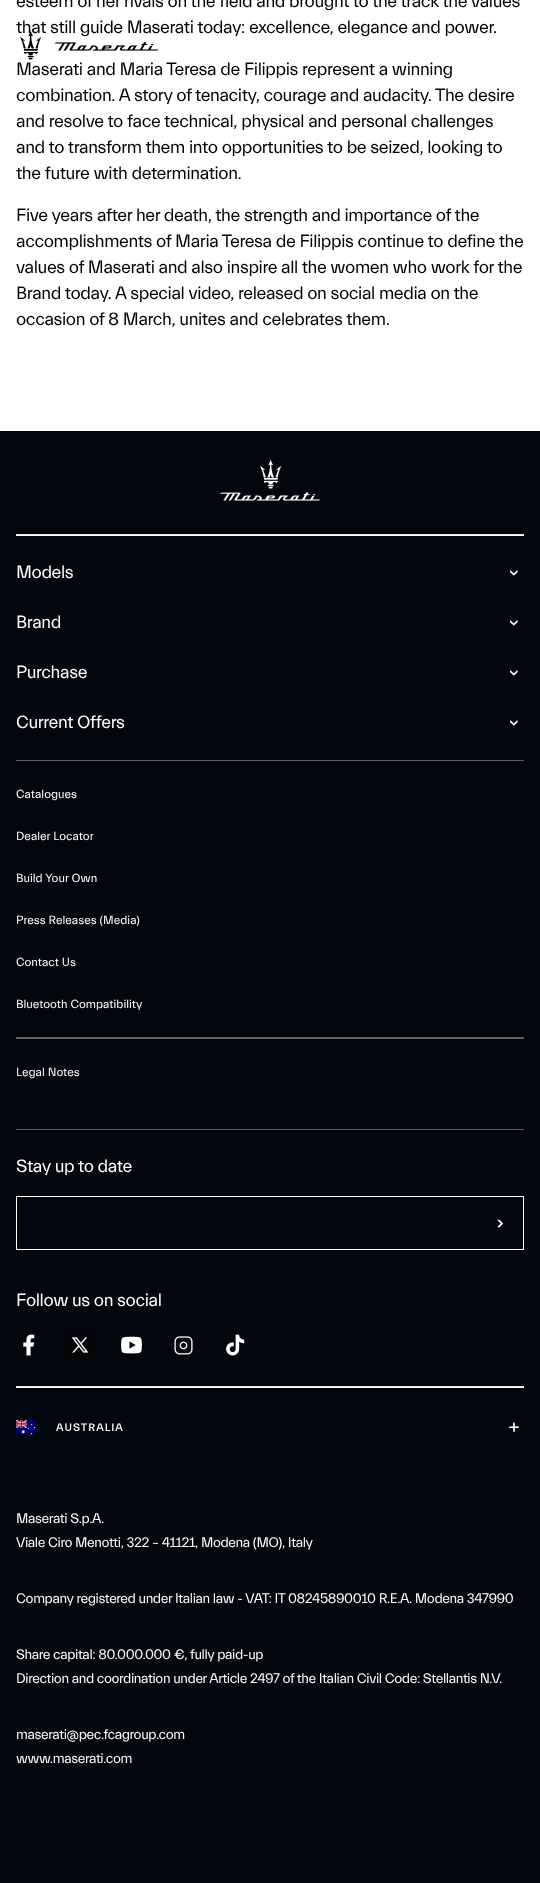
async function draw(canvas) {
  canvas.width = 540
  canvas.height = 1883
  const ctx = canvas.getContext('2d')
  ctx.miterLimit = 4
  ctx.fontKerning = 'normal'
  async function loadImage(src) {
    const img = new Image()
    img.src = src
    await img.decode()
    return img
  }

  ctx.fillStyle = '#fff'
  ctx.fillRect(0, 0, 540, 1883)
  ctx.letterSpacing = '-0.4px'
  ctx.font = '18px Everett'
  ctx.fillStyle = '#000'
  ctx.fillText('esteem of her rivals on the field and brought to the track the values', 16, 7)
  ctx.fillText('that still guide Maserati today: excellence, elegance and power.', 16, 33)
  ctx.fillText('Maserati and Maria Teresa de Filippis represent a winning', 16, 75)
  ctx.fillText('combination. A story of tenacity, courage and audacity. The desire', 16, 101)
  ctx.fillText('and resolve to face technical, physical and personal challenges', 16, 127)
  ctx.fillText('and to transform them into opportunities to be seized, looking to', 16, 153)
  ctx.fillText('the future with determination.', 16, 179)
  ctx.fillText('Five years after her death, the strength and importance of the', 16, 221)
  ctx.fillText('accomplishments of Maria Teresa de Filippis continue to define the', 16, 247)
  ctx.fillText('values of Maserati and also inspire all the women who work for the', 16, 273)
  ctx.fillText('Brand today. A special video, released on social media on the', 16, 299)
  ctx.fillText('occasion of 8 March, unites and celebrates them.', 16, 325)
  ctx.drawImage(await loadImage('image0.png'), 20, 30, 139, 30)
  ctx.fillStyle = '#02070d'
  ctx.fillRect(0, 431, 540, 1452)
  ctx.drawImage(await loadImage('image1.png'), 220, 459, 100, 42)
  ctx.fillStyle = '#fff'
  ctx.fillRect(16, 535, 508, 1)
  ctx.fillStyle = '#e6e6e6'
  ctx.fillRect(16, 534, 508, 1)
  ctx.fillStyle = '#fff'
  ctx.fillText('Models', 16, 578)
  ctx.drawImage(await loadImage('image2.png'), 510, 570, 8, 6)
  ctx.fillText('Brand', 16, 628)
  ctx.drawImage(await loadImage('image2.png'), 510, 620, 8, 6)
  ctx.fillText('Purchase', 16, 678)
  ctx.drawImage(await loadImage('image2.png'), 510, 670, 8, 6)
  ctx.fillText('Current Offers', 16, 728)
  ctx.drawImage(await loadImage('image2.png'), 510, 720, 8, 6)
  ctx.fillStyle = '#5c5c5c'
  ctx.fillRect(16, 760, 508, 1)
  ctx.letterSpacing = '0px'
  ctx.font = '12px Everett'
  ctx.fillStyle = '#fff'
  ctx.fillText('Catalogues', 16, 798)
  ctx.fillText('Dealer Locator', 16, 840)
  ctx.fillText('Build Your Own', 16, 882)
  ctx.fillText('Press Releases (Media)', 16, 924)
  ctx.fillText('Contact Us', 16, 966)
  ctx.fillText('Bluetooth Compatibility', 16, 1008)
  ctx.fillStyle = '#666'
  ctx.fillRect(16, 1038, 508, 1)
  ctx.fillStyle = '#5c5c5c'
  ctx.fillRect(16, 1037, 508, 1)
  ctx.fillStyle = '#fff'
  ctx.fillText('Legal Notes', 16, 1076)
  ctx.fillStyle = '#5c5c5c'
  ctx.fillRect(16, 1129, 508, 1)
  ctx.letterSpacing = '-0.4px'
  ctx.font = '18px Everett'
  ctx.fillStyle = '#fff'
  ctx.fillText('Stay up to date', 16, 1172)
  ctx.strokeStyle = '#fff'
  ctx.strokeRect(16.5, 1196.5, 507, 53)
  ctx.drawImage(await loadImage('image3.png'), 497, 1219, 7, 9)
  ctx.fillText('Follow us on social', 16, 1306)
  ctx.drawImage(await loadImage('image4.png'), 23, 1334, 12, 22)
  ctx.drawImage(await loadImage('image5.png'), 67, 1332, 26, 26)
  ctx.drawImage(await loadImage('image6.png'), 121, 1336, 21, 18)
  ctx.drawImage(await loadImage('image7.png'), 174, 1336, 19, 19)
  ctx.drawImage(await loadImage('image8.png'), 226, 1334, 19, 22)
  ctx.fillRect(16, 1387, 508, 1)
  ctx.fillStyle = '#e6e6e6'
  ctx.fillRect(16, 1386, 508, 1)
  ctx.drawImage(await loadImage('image9.png'), 16, 1420, 20, 15)
  ctx.letterSpacing = '1px'
  ctx.font = '500 11px Everett'
  ctx.fillStyle = '#fff'
  ctx.fillText('AUSTRALIA', 56, 1431)
  ctx.drawImage(await loadImage('image10.png'), 509, 1422, 10, 11)
  ctx.letterSpacing = '-0.4px'
  ctx.font = '14px Everett'
  ctx.fillText('Maserati S.p.A.', 16, 1523)
  ctx.fillText('Viale Ciro Menotti, 322 – 41121, Modena (MO), Italy', 16, 1547)
  ctx.fillText('Company registered under Italian law - VAT: IT 08245890010 R.E.A. Modena 347990', 16, 1603)
  ctx.fillText('Share capital: 80.000.000 €, fully paid-up', 16, 1659)
  ctx.fillText('Direction and coordination under Article 2497 of the Italian Civil Code: Stellantis N.V.', 16, 1683)
  ctx.fillText('maserati@pec.fcagroup.com', 16, 1739)
  ctx.fillText('www.maserati.com', 16, 1763)
}

draw(document.querySelector('canvas'))
